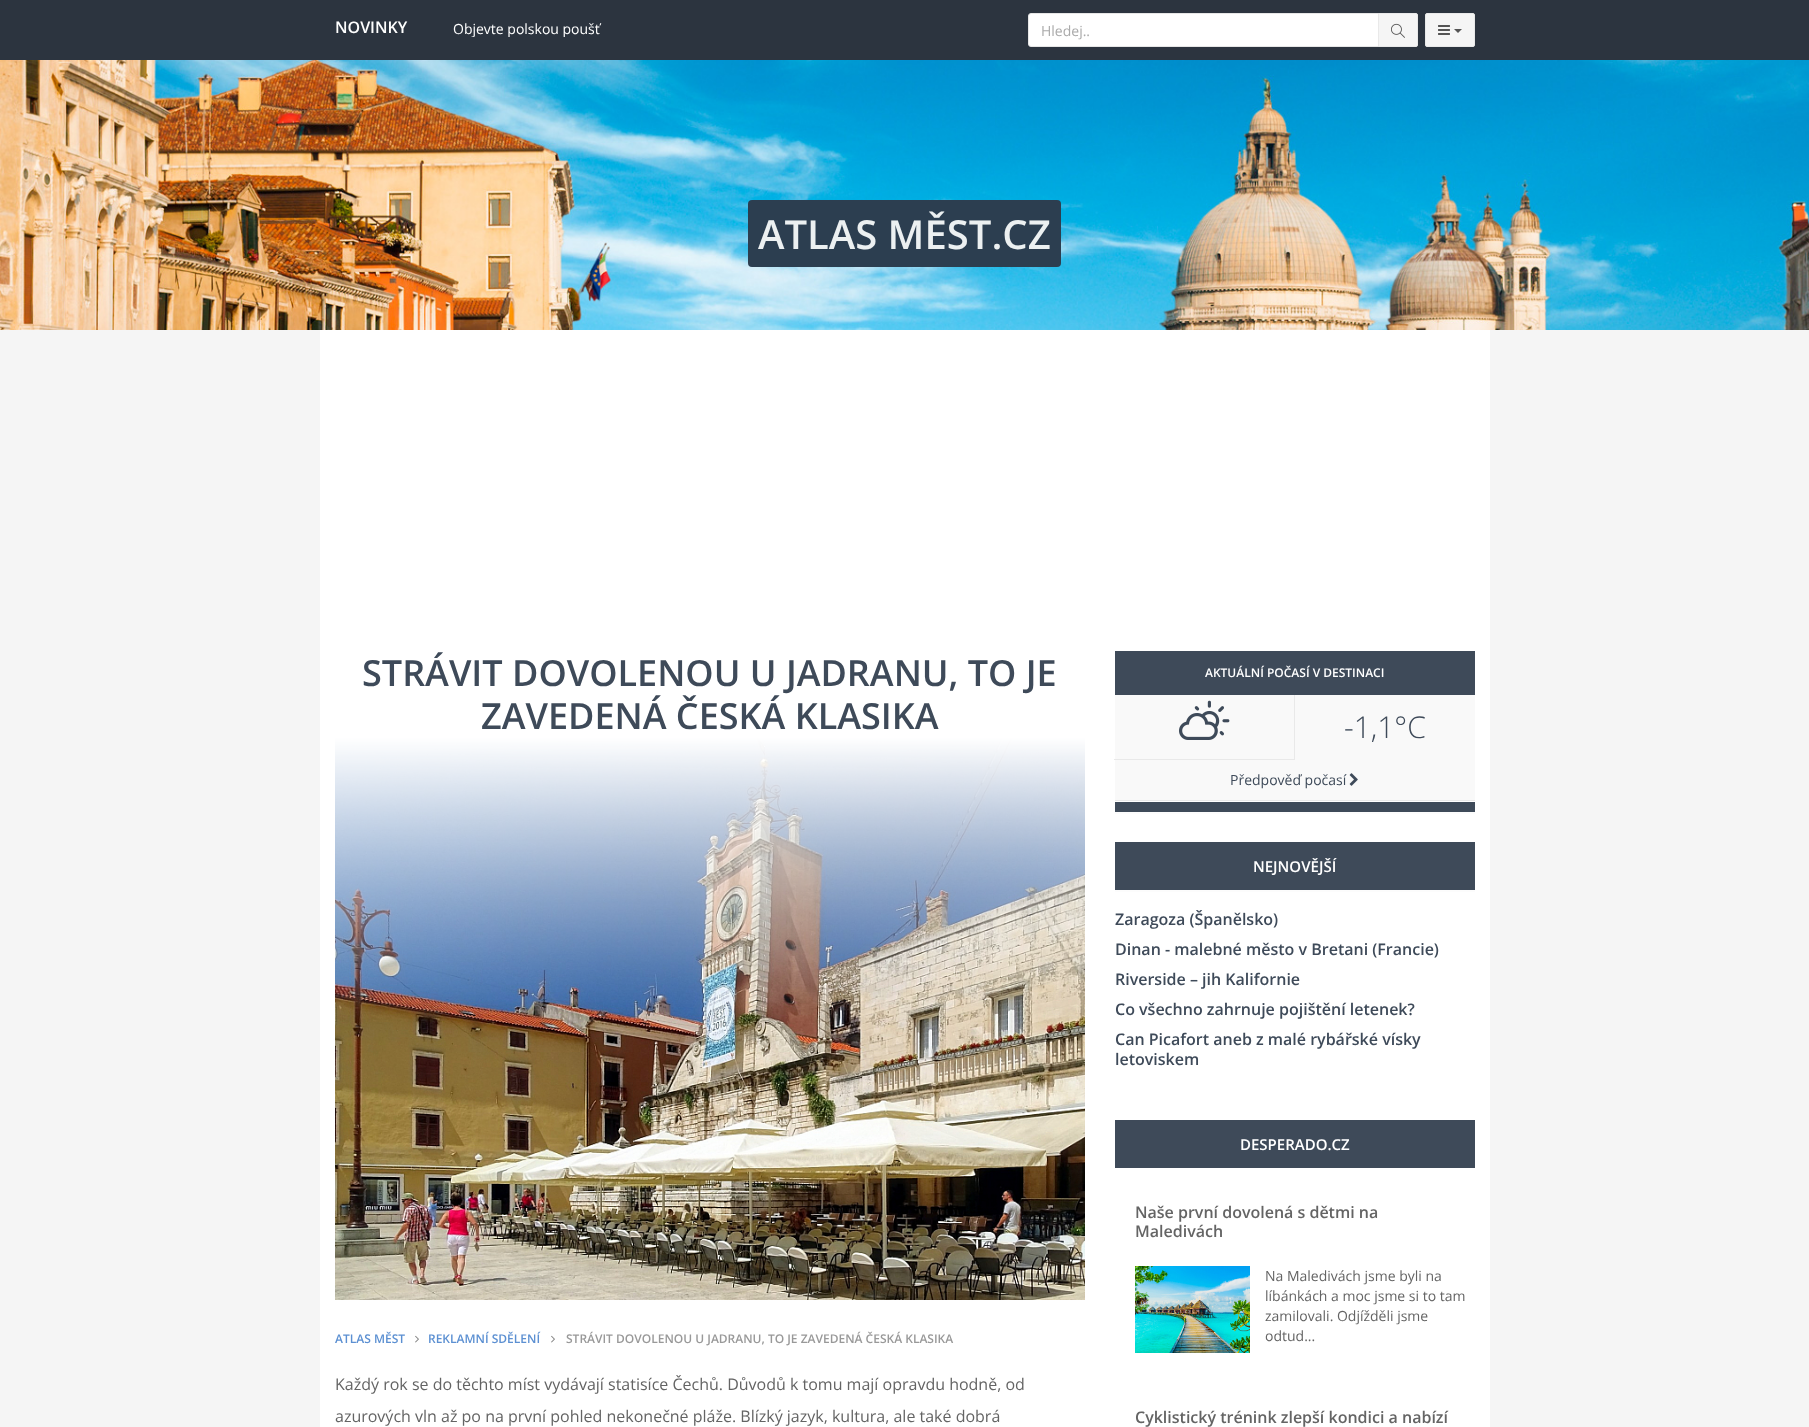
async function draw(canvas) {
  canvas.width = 1809
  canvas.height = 1427
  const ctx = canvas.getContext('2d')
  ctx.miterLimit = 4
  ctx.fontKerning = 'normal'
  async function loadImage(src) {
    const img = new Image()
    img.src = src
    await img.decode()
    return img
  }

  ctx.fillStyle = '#f5f5f5'
  ctx.fillRect(0, 0, 1809, 1427)
  ctx.fillStyle = '#2c343f'
  ctx.fillRect(0, 0, 1809, 60)
  ctx.font = '600 16px Open Sans'
  ctx.fillStyle = '#fff'
  ctx.fillText('NOVINKY', 335, 33)
  ctx.save()
  ctx.beginPath()
  ctx.rect(453, 19, 553, 18)
  ctx.clip()
  ctx.font = '14px Open Sans'
  ctx.fillText('Objevte polskou poušť', 453, 34)
  ctx.restore()
  ctx.beginPath()
  ctx.roundRect(1028.5, 13.5, 350, 33, [2.5, 0, 0, 2.5])
  ctx.fill()
  ctx.strokeStyle = '#e6e6e6'
  ctx.stroke()
  ctx.font = '14px Open Sans'
  ctx.fillStyle = '#aaa'
  ctx.fillText('Hledej..', 1041, 36)
  ctx.fillStyle = '#f5f5f5'
  ctx.beginPath()
  ctx.roundRect(1378.5, 13.5, 39, 33, [0, 1.5, 1.5, 0])
  ctx.fill()
  ctx.strokeStyle = '#e9e9e9'
  ctx.stroke()
  ctx.drawImage(await loadImage('image0.png'), 1391, 23, 14, 15)
  ctx.beginPath()
  ctx.roundRect(1425.5, 13.5, 49, 33, 1.5)
  ctx.fill()
  ctx.stroke()
  ctx.drawImage(await loadImage('image1.png'), 1438, 25, 12, 10)
  ctx.fillStyle = '#545454'
  ctx.beginPath()
  ctx.moveTo(1454, 29)
  ctx.lineTo(1462, 29)
  ctx.lineTo(1458, 33)
  ctx.closePath()
  ctx.fill()
  ctx.drawImage(await loadImage('image2.png'), 0, 60, 1809, 270)
  ctx.fillStyle = '#2c3e50'
  ctx.beginPath()
  ctx.roundRect(748, 200, 313, 67, 4)
  ctx.fill()
  ctx.font = '600 40px Open Sans'
  ctx.fillStyle = '#ecf0f1'
  ctx.fillText('ATLAS MĚST.CZ', 758, 249)
  ctx.fillStyle = '#fff'
  ctx.fillRect(320, 330, 1170, 1097)
  ctx.font = '600 36px Open Sans'
  ctx.fillStyle = '#3e4a59'
  ctx.fillText('STRÁVIT DOVOLENOU U JADRANU, TO JE', 362, 686)
  ctx.fillText('ZAVEDENÁ ČESKÁ KLASIKA', 481, 729)
  ctx.drawImage(await loadImage('image3.png'), 335, 737, 750, 563)
  ctx.font = '600 12px Open Sans'
  ctx.fillStyle = '#5c90d2'
  ctx.fillText('ATLAS MĚST', 335, 1343)
  ctx.drawImage(await loadImage('image4.png'), 415, 1335, 4, 8)
  ctx.fillText('REKLAMNÍ SDĚLENÍ', 428, 1343)
  ctx.drawImage(await loadImage('image4.png'), 551, 1335, 4, 8)
  ctx.fillStyle = '#999'
  ctx.fillText('STRÁVIT DOVOLENOU U JADRANU, TO JE ZAVEDENÁ ČESKÁ KLASIKA', 566, 1343)
  ctx.font = '16px Open Sans'
  ctx.fillStyle = '#646464'
  ctx.fillText('Každý rok se do těchto míst vydávají statisíce Čechů. Důvodů k tomu mají opravdu hodně, od', 335, 1390)
  ctx.fillText('azurových vln až po na první pohled nekonečné pláže. Blízký jazyk, kultura, ale také dobrá', 335, 1422)
  ctx.fillStyle = '#fcfcfc'
  ctx.fillRect(1115, 812, 360, 2)
  ctx.fillStyle = '#3e4a59'
  ctx.fillRect(1115, 651, 360, 44)
  ctx.font = '600 12px Open Sans'
  ctx.fillStyle = '#fff'
  ctx.fillText('AKTUÁLNÍ POČASÍ V DESTINACI', 1205, 677)
  ctx.fillStyle = '#f9f9f9'
  ctx.fillRect(1115, 695, 360, 105)
  ctx.fillStyle = '#e9e9e9'
  ctx.fillRect(1115, 800, 360, 1)
  ctx.fillRect(1294, 695, 1, 65)
  ctx.fillRect(1114, 759, 181, 1)
  ctx.drawImage(await loadImage('image5.png'), 1179, 700, 51, 40)
  ctx.font = '300 30px Open Sans'
  ctx.fillStyle = '#3e4a59'
  ctx.fillText('-1,1°C', 1344, 738)
  ctx.font = '14px Open Sans'
  ctx.fillText('Předpověď počasí', 1230, 785)
  ctx.drawImage(await loadImage('image6.png'), 1349, 773, 9, 13)
  ctx.fillRect(1115, 802, 360, 10)
  ctx.fillStyle = '#fcfcfc'
  ctx.fillRect(1115, 890, 360, 2)
  ctx.fillStyle = '#3e4a59'
  ctx.fillRect(1115, 842, 360, 48)
  ctx.font = '600 15px Open Sans'
  ctx.fillStyle = '#fff'
  ctx.fillText('NEJNOVĚJŠÍ', 1253, 872)
  ctx.font = '600 16px Open Sans'
  ctx.fillStyle = '#3e4a59'
  ctx.fillText('Zaragoza (Španělsko)', 1115, 925)
  ctx.fillText('Dinan - malebné město v Bretani (Francie)', 1115, 955)
  ctx.fillText('Riverside – jih Kalifornie', 1115, 985)
  ctx.fillText('Co všechno zahrnuje pojištění letenek?', 1115, 1015)
  ctx.fillText('Can Picafort aneb z malé rybářské vísky', 1115, 1045)
  ctx.fillText('letoviskem', 1115, 1065)
  ctx.fillRect(1115, 1120, 360, 48)
  ctx.font = '600 15px Open Sans'
  ctx.fillStyle = '#fff'
  ctx.fillText('DESPERADO.CZ', 1240, 1150)
  ctx.font = '600 16px Open Sans'
  ctx.fillStyle = '#646464'
  ctx.fillText('Naše první dovolená s dětmi na', 1135, 1218)
  ctx.fillText('Maledivách', 1135, 1237)
  ctx.drawImage(await loadImage('image7.png'), 1135, 1266, 115, 87)
  ctx.font = '14px Open Sans'
  ctx.fillText('Na Maledivách jsme byli na', 1265, 1281)
  ctx.fillText('líbánkách a moc jsme si to tam', 1265, 1301)
  ctx.fillText('zamilovali. Odjížděli jsme', 1265, 1321)
  ctx.fillText('odtud...', 1265, 1341)
  ctx.font = '600 16px Open Sans'
  ctx.fillText('Cyklistický trénink zlepší kondici a nabízí', 1135, 1423)
}

draw(document.querySelector('canvas'))
